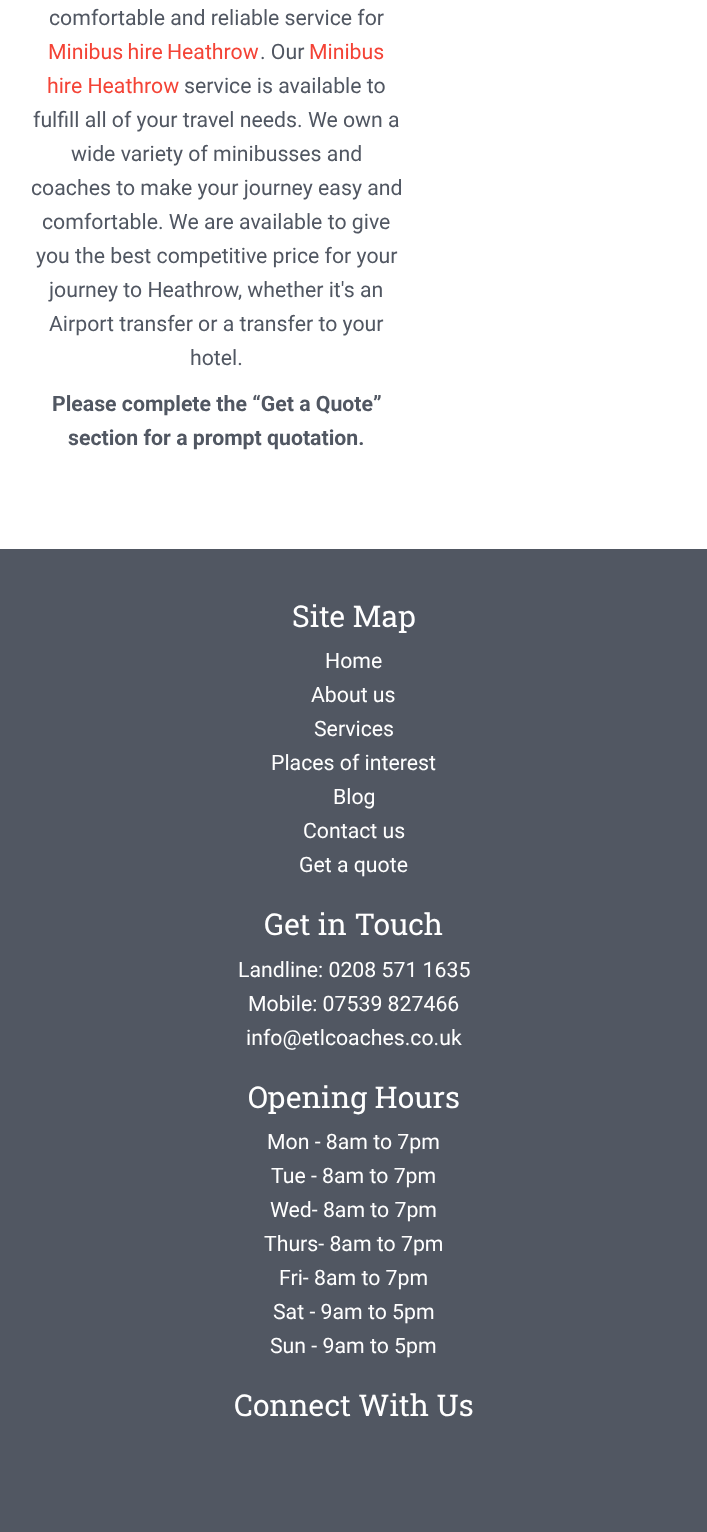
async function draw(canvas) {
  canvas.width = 707
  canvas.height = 1532
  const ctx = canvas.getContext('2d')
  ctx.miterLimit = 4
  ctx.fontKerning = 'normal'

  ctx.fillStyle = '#fff'
  ctx.fillRect(0, 0, 707, 1532)
  ctx.font = '21.25px Roboto'
  ctx.fillStyle = '#515762'
  ctx.fillText('comfortable and reliable service for', 49, 25)
  ctx.wordSpacing = '-1px'
  ctx.fillStyle = '#f44336'
  ctx.fillText('Minibus hire Heathrow', 48, 59)
  ctx.wordSpacing = '0px'
  ctx.fillStyle = '#515762'
  ctx.fillText('. Our', 260, 59)
  ctx.fillStyle = '#f44336'
  ctx.fillText('Minibus', 309, 59)
  ctx.fillText('hire Heathrow', 47, 93)
  ctx.fillStyle = '#515762'
  ctx.fillText('service is available to', 184, 93)
  ctx.fillText('fulfill all of your travel needs. We own a', 33, 127)
  ctx.fillText('wide variety of minibusses and', 71, 161)
  ctx.fillText('coaches to make your journey easy and', 31, 195)
  ctx.fillText('comfortable. We are available to give', 42, 229)
  ctx.fillText('you the best competitive price for your', 36, 263)
  ctx.fillText('journey to Heathrow, whether it\'s an', 49, 297)
  ctx.fillText('Airport transfer or a transfer to your', 49, 331)
  ctx.fillText('hotel.', 190, 365)
  ctx.font = 'bold 21.25px Roboto'
  ctx.fillText('Please complete the “Get a Quote”', 52, 411)
  ctx.fillText('section for a prompt quotation.', 68, 445)
  ctx.fillRect(0, 549, 707, 983)
  ctx.font = '30px Roboto Slab'
  ctx.fillStyle = '#fff'
  ctx.fillText('Site Map', 292, 627)
  ctx.font = '21.25px Roboto'
  ctx.fillText('Home', 325, 668)
  ctx.fillText('About us', 311, 702)
  ctx.fillText('Services', 314, 736)
  ctx.fillText('Places of interest', 271, 770)
  ctx.fillText('Blog', 333, 804)
  ctx.fillText('Contact us', 303, 838)
  ctx.fillText('Get a quote', 299, 872)
  ctx.font = '30px Roboto Slab'
  ctx.fillText('Get in Touch', 264, 935)
  ctx.font = '21.25px Roboto'
  ctx.fillText('Landline: 0208 571 1635', 238, 977)
  ctx.fillText('Mobile: 07539 827466', 248, 1011)
  ctx.fillText('info@etlcoaches.co.uk', 246, 1045)
  ctx.font = '30px Roboto Slab'
  ctx.fillText('Opening Hours', 248, 1108)
  ctx.font = '21.25px Roboto'
  ctx.fillText('Mon - 8am to 7pm', 267, 1149)
  ctx.fillText('Tue - 8am to 7pm', 271, 1183)
  ctx.fillText('Wed- 8am to 7pm', 270, 1217)
  ctx.fillText('Thurs- 8am to 7pm', 264, 1251)
  ctx.fillText('Fri- 8am to 7pm', 279, 1285)
  ctx.fillText('Sat - 9am to 5pm', 273, 1319)
  ctx.fillText('Sun - 9am to 5pm', 270, 1353)
  ctx.font = '30px Roboto Slab'
  ctx.fillText('Connect With Us', 234, 1416)
}

draw(document.querySelector('canvas'))
